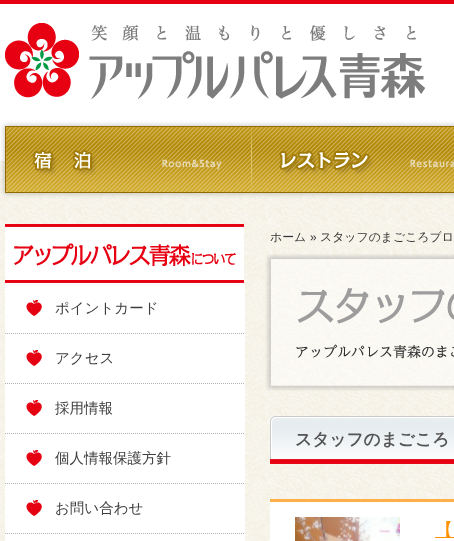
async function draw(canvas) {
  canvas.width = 454
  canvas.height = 541
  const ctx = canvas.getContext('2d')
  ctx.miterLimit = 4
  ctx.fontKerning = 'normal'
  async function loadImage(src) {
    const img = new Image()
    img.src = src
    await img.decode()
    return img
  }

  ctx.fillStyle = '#fff'
  ctx.fillRect(0, 0, 454, 541)
  ctx.drawImage(await loadImage('image0.png'), 0, 198, 454, 343)
  ctx.fillStyle = '#e60012'
  ctx.fillRect(0, 0, 454, 4)
  ctx.drawImage(await loadImage('image1.png'), 0, 4, 454, 194)
  ctx.drawImage(await loadImage('image2.png'), 5, 23, 420, 76)
  ctx.fillStyle = '#00000033'
  ctx.filter = 'blur(2.5px)'
  ctx.beginPath()
  ctx.rect(4, 125, 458, 69)
  ctx.fill()
  ctx.filter = 'none'
  ctx.drawImage(await loadImage('image3.png'), 5, 126, 245, 67)
  ctx.drawImage(await loadImage('image4.png'), 250, 126, 204, 67)
  ctx.fillStyle = '#fff'
  ctx.fillRect(5, 284, 240, 257)
  ctx.drawImage(await loadImage('image5.png'), 5, 224, 240, 60)
  ctx.drawImage(await loadImage('image6.png'), 26, 300, 16, 16)
  ctx.beginPath()
  ctx.moveTo(5, 333.5)
  ctx.lineTo(245, 333.5)
  ctx.strokeStyle = '#b2b2b2'
  ctx.setLineDash([1, 1])
  ctx.stroke()
  ctx.font = '500 14.5px WenQuanYi Zen Hei'
  ctx.fillStyle = '#3e3e3e'
  ctx.fillText('ポイントカード', 55, 313)
  ctx.drawImage(await loadImage('image6.png'), 26, 350, 16, 16)
  ctx.beginPath()
  ctx.moveTo(5, 383.5)
  ctx.lineTo(245, 383.5)
  ctx.stroke()
  ctx.fillText('アクセス', 55, 363)
  ctx.drawImage(await loadImage('image6.png'), 26, 400, 16, 16)
  ctx.beginPath()
  ctx.moveTo(5, 433.5)
  ctx.lineTo(245, 433.5)
  ctx.stroke()
  ctx.fillText('採用情報', 55, 413)
  ctx.drawImage(await loadImage('image6.png'), 26, 450, 16, 16)
  ctx.beginPath()
  ctx.moveTo(5, 483.5)
  ctx.lineTo(245, 483.5)
  ctx.stroke()
  ctx.fillText('個人情報保護方針', 55, 463)
  ctx.drawImage(await loadImage('image6.png'), 26, 500, 16, 16)
  ctx.beginPath()
  ctx.moveTo(5, 533.5)
  ctx.lineTo(245, 533.5)
  ctx.stroke()
  ctx.fillText('お問い合わせ', 55, 513)
  ctx.font = '500 11.9px WenQuanYi Zen Hei'
  ctx.fillStyle = '#333'
  ctx.fillText('ホーム', 270, 241)
  ctx.font = '11.9px Liberation Sans'
  ctx.fillText('»', 310, 241)
  ctx.font = '500 11.9px WenQuanYi Zen Hei'
  ctx.fillText('スタッフのまごころブロ', 320, 241)
  ctx.drawImage(await loadImage('image7.png'), 265, 254, 189, 137)
  ctx.drawImage(await loadImage('image8.png'), 270, 416, 184, 48)
  ctx.wordSpacing = '-1px'
  ctx.font = 'bold 16.75px WenQuanYi Zen Hei'
  ctx.fillStyle = '#555'
  ctx.fillText('スタッフのまごころ', 295, 445)
  ctx.fillStyle = '#fff'
  ctx.fillRect(270, 502, 184, 39)
  ctx.fillStyle = '#ffaf48'
  ctx.fillRect(270, 499, 184, 3)
  ctx.drawImage(await loadImage('image9.png'), 295, 517, 105, 24)
  ctx.fillStyle = '#ff9000'
  ctx.fillRect(435, 537, 19, 1)
  ctx.wordSpacing = '0px'
  ctx.font = '500 18px WenQuanYi Zen Hei'
  ctx.fillText('【', 435, 536)
}

draw(document.querySelector('canvas'))
